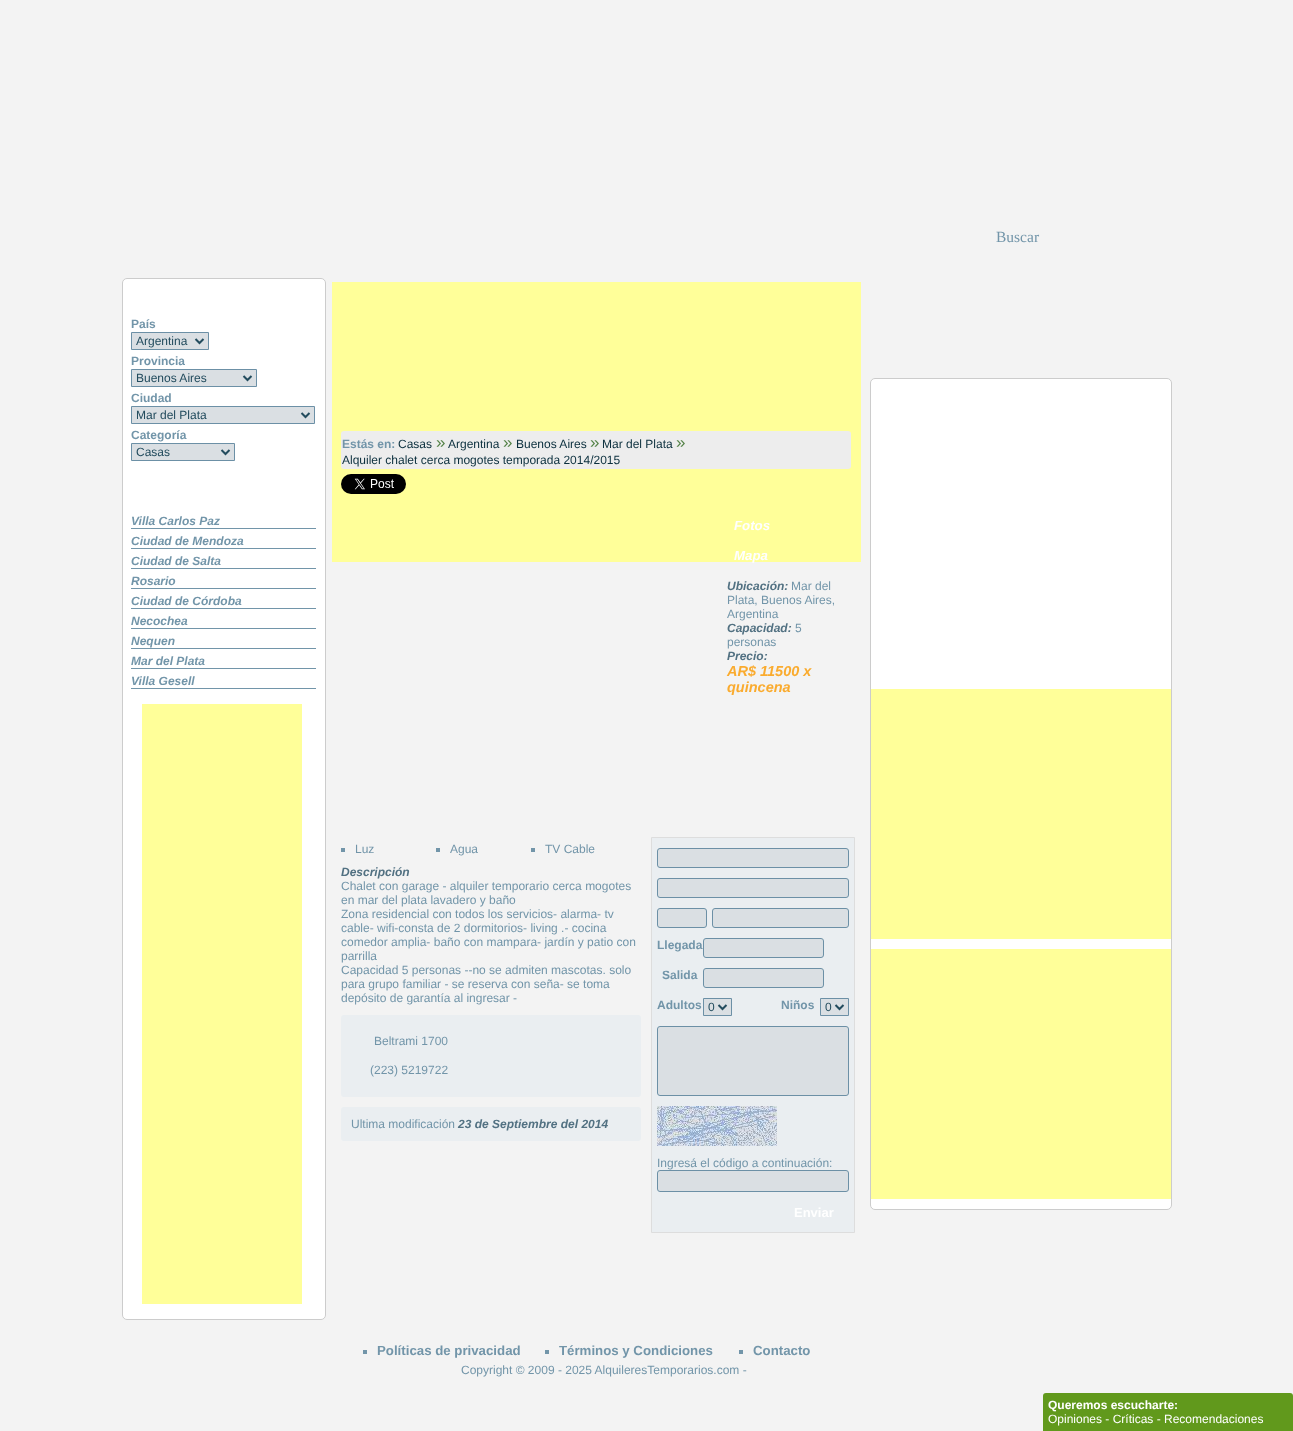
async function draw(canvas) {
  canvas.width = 1293
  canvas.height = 1431
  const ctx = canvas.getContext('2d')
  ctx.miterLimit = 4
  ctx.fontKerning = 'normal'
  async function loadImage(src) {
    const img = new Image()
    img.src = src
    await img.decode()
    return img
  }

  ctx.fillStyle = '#f3f3f3'
  ctx.fillRect(0, 0, 1293, 1431)
  ctx.font = '15.5px Liberation Serif'
  ctx.fillStyle = '#7295a9'
  ctx.fillText('Buscar', 996, 242)
  ctx.fillStyle = '#fff'
  ctx.beginPath()
  ctx.roundRect(122.5, 278.5, 203, 1041, 4.5)
  ctx.fill()
  ctx.strokeStyle = '#ccc'
  ctx.stroke()
  ctx.font = 'bold 12px Liberation Sans'
  ctx.fillStyle = '#7295a9'
  ctx.fillText('País', 131, 328)
  ctx.fillStyle = '#dadfe3'
  ctx.beginPath()
  ctx.rect(131.5, 332.5, 77, 17)
  ctx.fill()
  ctx.strokeStyle = '#6c90a6'
  ctx.stroke()
  ctx.beginPath()
  ctx.moveTo(195.5, 339)
  ctx.lineTo(199.5, 343)
  ctx.lineTo(203.5, 339)
  ctx.strokeStyle = '#234c5e'
  ctx.lineWidth = 2
  ctx.stroke()
  ctx.font = '12px Liberation Sans'
  ctx.fillStyle = '#234c5e'
  ctx.fillText('Argentina', 136, 345)
  ctx.font = 'bold 12px Liberation Sans'
  ctx.fillStyle = '#7295a9'
  ctx.fillText('Provincia', 131, 365)
  ctx.fillStyle = '#dadfe3'
  ctx.beginPath()
  ctx.rect(131.5, 369.5, 125, 17)
  ctx.fill()
  ctx.strokeStyle = '#6c90a6'
  ctx.lineWidth = 1
  ctx.stroke()
  ctx.beginPath()
  ctx.moveTo(243.5, 376)
  ctx.lineTo(247.5, 380)
  ctx.lineTo(251.5, 376)
  ctx.strokeStyle = '#234c5e'
  ctx.lineWidth = 2
  ctx.stroke()
  ctx.font = '12px Liberation Sans'
  ctx.fillStyle = '#234c5e'
  ctx.fillText('Buenos Aires', 136, 382)
  ctx.font = 'bold 12px Liberation Sans'
  ctx.fillStyle = '#7295a9'
  ctx.fillText('Ciudad', 131, 402)
  ctx.fillStyle = '#dadfe3'
  ctx.beginPath()
  ctx.rect(131.5, 406.5, 183, 17)
  ctx.fill()
  ctx.strokeStyle = '#6c90a6'
  ctx.lineWidth = 1
  ctx.stroke()
  ctx.beginPath()
  ctx.moveTo(301.5, 413)
  ctx.lineTo(305.5, 417)
  ctx.lineTo(309.5, 413)
  ctx.strokeStyle = '#234c5e'
  ctx.lineWidth = 2
  ctx.stroke()
  ctx.font = '12px Liberation Sans'
  ctx.fillStyle = '#234c5e'
  ctx.fillText('Mar del Plata', 136, 419)
  ctx.font = 'bold 12px Liberation Sans'
  ctx.fillStyle = '#7295a9'
  ctx.fillText('Categoría', 131, 439)
  ctx.fillStyle = '#dadfe3'
  ctx.beginPath()
  ctx.rect(131.5, 443.5, 103, 17)
  ctx.fill()
  ctx.strokeStyle = '#6c90a6'
  ctx.lineWidth = 1
  ctx.stroke()
  ctx.beginPath()
  ctx.moveTo(221.5, 450)
  ctx.lineTo(225.5, 454)
  ctx.lineTo(229.5, 450)
  ctx.strokeStyle = '#234c5e'
  ctx.lineWidth = 2
  ctx.stroke()
  ctx.font = '12px Liberation Sans'
  ctx.fillStyle = '#234c5e'
  ctx.fillText('Casas', 136, 456)
  ctx.fillStyle = '#7295a9'
  ctx.fillRect(131, 528, 185, 1)
  ctx.font = 'italic bold 12px Liberation Sans'
  ctx.fillText('Villa Carlos Paz', 131, 525)
  ctx.fillRect(131, 548, 185, 1)
  ctx.fillText('Ciudad de Mendoza', 131, 545)
  ctx.fillRect(131, 568, 185, 1)
  ctx.fillText('Ciudad de Salta', 131, 565)
  ctx.fillRect(131, 588, 185, 1)
  ctx.fillText('Rosario', 131, 585)
  ctx.fillRect(131, 608, 185, 1)
  ctx.fillText('Ciudad de Córdoba', 131, 605)
  ctx.fillRect(131, 628, 185, 1)
  ctx.fillText('Necochea', 131, 625)
  ctx.fillRect(131, 648, 185, 1)
  ctx.fillText('Nequen', 131, 645)
  ctx.fillRect(131, 668, 185, 1)
  ctx.fillText('Mar del Plata', 131, 665)
  ctx.fillRect(131, 688, 185, 1)
  ctx.fillText('Villa Gesell', 131, 685)
  ctx.fillStyle = '#ff9'
  ctx.fillRect(142, 704, 160, 600)
  ctx.fillRect(332, 282, 529, 280)
  ctx.fillStyle = '#fff'
  ctx.beginPath()
  ctx.roundRect(870.5, 378.5, 301, 831, 4.5)
  ctx.fill()
  ctx.strokeStyle = '#ccc'
  ctx.lineWidth = 1
  ctx.stroke()
  ctx.fillStyle = '#ff9'
  ctx.fillRect(871, 689, 300, 250)
  ctx.fillRect(871, 949, 300, 250)
  ctx.fillStyle = '#ededed'
  ctx.beginPath()
  ctx.roundRect(341, 431, 510, 38, 3)
  ctx.fill()
  ctx.font = 'bold 12px Liberation Sans'
  ctx.fillStyle = '#7295a9'
  ctx.fillText('Estás en:', 342, 448)
  ctx.font = '12px Liberation Sans'
  ctx.fillStyle = '#0b2f3d'
  ctx.fillText('Casas', 398, 448)
  ctx.font = '17px Liberation Sans'
  ctx.fillStyle = '#528145'
  ctx.fillText('»', 436, 448)
  ctx.font = '12px Liberation Sans'
  ctx.fillStyle = '#0b2f3d'
  ctx.fillText('Argentina', 448, 448)
  ctx.font = '17px Liberation Sans'
  ctx.fillStyle = '#528145'
  ctx.fillText('»', 503, 448)
  ctx.font = '12px Liberation Sans'
  ctx.fillStyle = '#0b2f3d'
  ctx.fillText('Buenos Aires', 516, 448)
  ctx.font = '17px Liberation Sans'
  ctx.fillStyle = '#528145'
  ctx.fillText('»', 590, 448)
  ctx.font = '12px Liberation Sans'
  ctx.fillStyle = '#0b2f3d'
  ctx.fillText('Mar del Plata', 602, 448)
  ctx.font = '17px Liberation Sans'
  ctx.fillStyle = '#528145'
  ctx.fillText('»', 676, 448)
  ctx.font = '12px Liberation Sans'
  ctx.fillStyle = '#0b2f3d'
  ctx.fillText('Alquiler chalet cerca mogotes temporada 2014/2015', 342, 464)
  ctx.drawImage(await loadImage('image0.png'), 341, 474, 65, 20)
  ctx.font = 'italic bold 13.25px Liberation Sans'
  ctx.fillStyle = '#fff'
  ctx.fillText('Fotos', 734, 530)
  ctx.fillText('Mapa', 734, 560)
  ctx.font = 'italic bold 12px Liberation Sans'
  ctx.fillStyle = '#527182'
  ctx.fillText('Ubicación:', 727, 590)
  ctx.font = '12px Liberation Sans'
  ctx.fillStyle = '#7295a9'
  ctx.fillText('Mar del', 791, 590)
  ctx.fillText('Plata, Buenos Aires,', 727, 604)
  ctx.fillText('Argentina', 727, 618)
  ctx.font = 'italic bold 12px Liberation Sans'
  ctx.fillStyle = '#527182'
  ctx.fillText('Capacidad:', 727, 632)
  ctx.font = '12px Liberation Sans'
  ctx.fillStyle = '#7295a9'
  ctx.fillText('5', 795, 632)
  ctx.fillText('personas', 727, 646)
  ctx.font = 'italic bold 12px Liberation Sans'
  ctx.fillStyle = '#527182'
  ctx.fillText('Precio:', 727, 660)
  ctx.font = 'italic bold 14.5px Liberation Sans'
  ctx.fillStyle = '#faab2e'
  ctx.fillText('AR$ 11500 x', 727, 676)
  ctx.fillText('quincena', 727, 692)
  ctx.fillStyle = '#7295a9'
  ctx.fillRect(341, 848, 4, 4)
  ctx.font = '12px Liberation Sans'
  ctx.fillText('Luz', 355, 853)
  ctx.fillRect(436, 848, 4, 4)
  ctx.fillText('Agua', 450, 853)
  ctx.fillRect(531, 848, 4, 4)
  ctx.fillText('TV Cable', 545, 853)
  ctx.font = 'italic bold 12px Liberation Sans'
  ctx.fillStyle = '#527182'
  ctx.fillText('Descripción', 341, 876)
  ctx.font = '12px Liberation Sans'
  ctx.fillStyle = '#7295a9'
  ctx.fillText('Chalet con garage - alquiler temporario cerca mogotes', 341, 890)
  ctx.fillText('en mar del plata lavadero y baño', 341, 904)
  ctx.fillText('Zona residencial con todos los servicios- alarma- tv', 341, 918)
  ctx.fillText('cable- wifi-consta de 2 dormitorios- living .- cocina', 341, 932)
  ctx.fillText('comedor amplia- baño con mampara- jardín y patio con', 341, 946)
  ctx.fillText('parrilla', 341, 960)
  ctx.fillText('Capacidad 5 personas --no se admiten mascotas. solo', 341, 974)
  ctx.fillText('para grupo familiar - se reserva con seña- se toma', 341, 988)
  ctx.fillText('depósito de garantía al ingresar -', 341, 1002)
  ctx.fillStyle = '#eaeef1'
  ctx.beginPath()
  ctx.roundRect(341, 1015, 300, 82, 3)
  ctx.fill()
  ctx.fillStyle = '#7295a9'
  ctx.fillText('Beltrami 1700', 374, 1045)
  ctx.fillText('(223) 5219722', 370, 1074)
  ctx.fillStyle = '#eaeef1'
  ctx.beginPath()
  ctx.roundRect(341, 1107, 300, 34, 3)
  ctx.fill()
  ctx.fillStyle = '#7295a9'
  ctx.fillText('Ultima modificación', 351, 1128)
  ctx.font = 'italic bold 12px Liberation Sans'
  ctx.fillStyle = '#527182'
  ctx.fillText('23 de Septiembre del 2014', 458, 1128)
  ctx.fillStyle = '#eaeef1'
  ctx.beginPath()
  ctx.rect(651.5, 837.5, 203, 395)
  ctx.fill()
  ctx.strokeStyle = '#ddd'
  ctx.stroke()
  ctx.fillStyle = '#dadfe3'
  ctx.beginPath()
  ctx.roundRect(657.5, 848.5, 191, 19, 2.5)
  ctx.fill()
  ctx.strokeStyle = '#6c90a6'
  ctx.stroke()
  ctx.beginPath()
  ctx.roundRect(657.5, 878.5, 191, 19, 2.5)
  ctx.fill()
  ctx.stroke()
  ctx.beginPath()
  ctx.roundRect(657.5, 908.5, 49, 19, 2.5)
  ctx.fill()
  ctx.stroke()
  ctx.beginPath()
  ctx.roundRect(712.5, 908.5, 136, 19, 2.5)
  ctx.fill()
  ctx.stroke()
  ctx.font = 'bold 12px Liberation Sans'
  ctx.fillStyle = '#7295a9'
  ctx.fillText('Llegada', 657, 949)
  ctx.fillStyle = '#dadfe3'
  ctx.beginPath()
  ctx.roundRect(703.5, 938.5, 120, 19, 2.5)
  ctx.fill()
  ctx.stroke()
  ctx.fillStyle = '#7295a9'
  ctx.fillText('Salida', 662, 979)
  ctx.fillStyle = '#dadfe3'
  ctx.beginPath()
  ctx.roundRect(703.5, 968.5, 120, 19, 2.5)
  ctx.fill()
  ctx.stroke()
  ctx.fillStyle = '#7295a9'
  ctx.fillText('Adultos', 657, 1009)
  ctx.fillStyle = '#dadfe3'
  ctx.beginPath()
  ctx.rect(703.5, 998.5, 28, 17)
  ctx.fill()
  ctx.stroke()
  ctx.beginPath()
  ctx.moveTo(718.5, 1005)
  ctx.lineTo(722.5, 1009)
  ctx.lineTo(726.5, 1005)
  ctx.strokeStyle = '#234c5e'
  ctx.lineWidth = 2
  ctx.stroke()
  ctx.font = '12px Liberation Sans'
  ctx.fillStyle = '#234c5e'
  ctx.fillText('0', 708, 1011)
  ctx.font = 'bold 12px Liberation Sans'
  ctx.fillStyle = '#7295a9'
  ctx.fillText('Niños', 781, 1009)
  ctx.fillStyle = '#dadfe3'
  ctx.beginPath()
  ctx.rect(820.5, 998.5, 28, 17)
  ctx.fill()
  ctx.strokeStyle = '#6c90a6'
  ctx.lineWidth = 1
  ctx.stroke()
  ctx.beginPath()
  ctx.moveTo(835.5, 1005)
  ctx.lineTo(839.5, 1009)
  ctx.lineTo(843.5, 1005)
  ctx.strokeStyle = '#234c5e'
  ctx.lineWidth = 2
  ctx.stroke()
  ctx.font = '12px Liberation Sans'
  ctx.fillStyle = '#234c5e'
  ctx.fillText('0', 825, 1011)
  ctx.fillStyle = '#dadfe3'
  ctx.beginPath()
  ctx.roundRect(657.5, 1026.5, 191, 69, 2.5)
  ctx.fill()
  ctx.strokeStyle = '#6c90a6'
  ctx.lineWidth = 1
  ctx.stroke()
  ctx.drawImage(await loadImage('image1.png'), 657, 1106, 120, 40)
  ctx.fillStyle = '#7295a9'
  ctx.fillText('Ingresá el código a continuación:', 657, 1167)
  ctx.fillStyle = '#dadfe3'
  ctx.beginPath()
  ctx.roundRect(657.5, 1170.5, 191, 21, 2.5)
  ctx.fill()
  ctx.stroke()
  ctx.font = 'bold 13px Liberation Sans'
  ctx.fillStyle = '#fff'
  ctx.fillText('Enviar', 794, 1217)
  ctx.fillStyle = '#7295a9'
  ctx.fillRect(363, 1350, 4, 4)
  ctx.font = 'bold 13.25px Liberation Sans'
  ctx.fillText('Políticas de privacidad', 377, 1355)
  ctx.fillRect(545, 1350, 4, 4)
  ctx.fillText('Términos y Condiciones', 559, 1355)
  ctx.fillRect(739, 1350, 4, 4)
  ctx.fillText('Contacto', 753, 1355)
  ctx.font = '12px Liberation Sans'
  ctx.fillText('Copyright © 2009 - 2025 AlquileresTemporarios.com -', 461, 1374)
  ctx.fillStyle = '#61991c'
  ctx.beginPath()
  ctx.roundRect(1043, 1393, 250, 38, [3, 3, 0, 0])
  ctx.fill()
  ctx.font = 'bold 12px Liberation Sans'
  ctx.fillStyle = '#fff'
  ctx.fillText('Queremos escucharte:', 1048, 1409)
  ctx.font = '12px Liberation Sans'
  ctx.fillText('Opiniones - Críticas - Recomendaciones', 1048, 1423)
}

draw(document.querySelector('canvas'))
